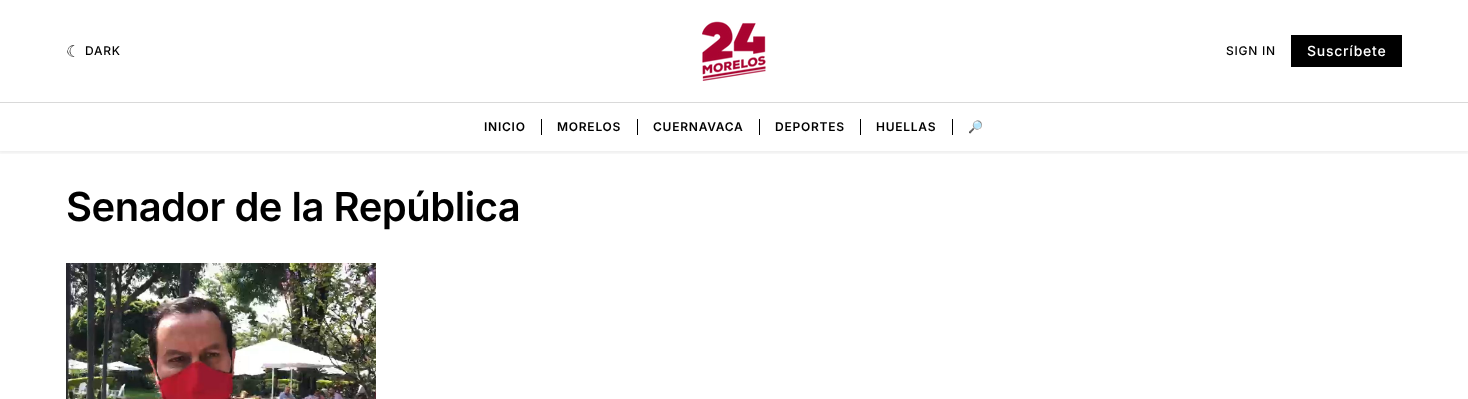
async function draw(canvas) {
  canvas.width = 1468
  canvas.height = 399
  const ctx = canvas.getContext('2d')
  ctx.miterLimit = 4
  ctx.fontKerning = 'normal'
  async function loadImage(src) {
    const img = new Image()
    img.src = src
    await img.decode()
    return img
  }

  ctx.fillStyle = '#fff'
  ctx.fillRect(0, 0, 1468, 399)
  ctx.save()
  ctx.beginPath()
  ctx.rect(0, 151, 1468, 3)
  ctx.clip()
  ctx.fillStyle = '#00000014'
  ctx.filter = 'blur(2px)'
  ctx.beginPath()
  ctx.rect(-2, -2, 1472, 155)
  ctx.fill()
  ctx.filter = 'none'
  ctx.restore()
  ctx.fillStyle = '#d9d9d9'
  ctx.fillRect(0, 102, 1468, 1)
  ctx.letterSpacing = '0.75px'
  ctx.font = '16px DejaVu Sans'
  ctx.fillStyle = '#000'
  ctx.fillText('☾', 66, 57)
  ctx.font = '500 12px Inter'
  ctx.fillText('DARK', 85, 55)
  ctx.drawImage(await loadImage('image0.png'), 702, 21, 64, 60)
  ctx.fillText('SIGN IN', 1226, 55)
  ctx.fillRect(1291, 35, 111, 32)
  ctx.font = '500 14px Inter'
  ctx.fillStyle = '#fff'
  ctx.fillText('Suscríbete', 1307, 56)
  ctx.font = '600 12px Inter'
  ctx.fillStyle = '#000'
  ctx.fillText('INICIO', 484, 131)
  ctx.fillRect(541, 119, 1, 16)
  ctx.fillText('MORELOS', 557, 131)
  ctx.fillRect(637, 119, 1, 16)
  ctx.fillText('CUERNAVACA', 653, 131)
  ctx.fillRect(759, 119, 1, 16)
  ctx.fillText('DEPORTES', 775, 131)
  ctx.fillRect(860, 119, 1, 16)
  ctx.fillText('HUELLAS', 876, 131)
  ctx.fillRect(952, 119, 1, 16)
  ctx.font = 'bold 12px Noto Color Emoji'
  ctx.fillText('🔎', 968, 131)
  ctx.letterSpacing = '-0.5px'
  ctx.font = '600 40px Inter'
  ctx.fillText('Senador de la República', 66, 221)
  ctx.drawImage(await loadImage('image1.png'), 66, 263, 310, 136)
}

draw(document.querySelector('canvas'))
